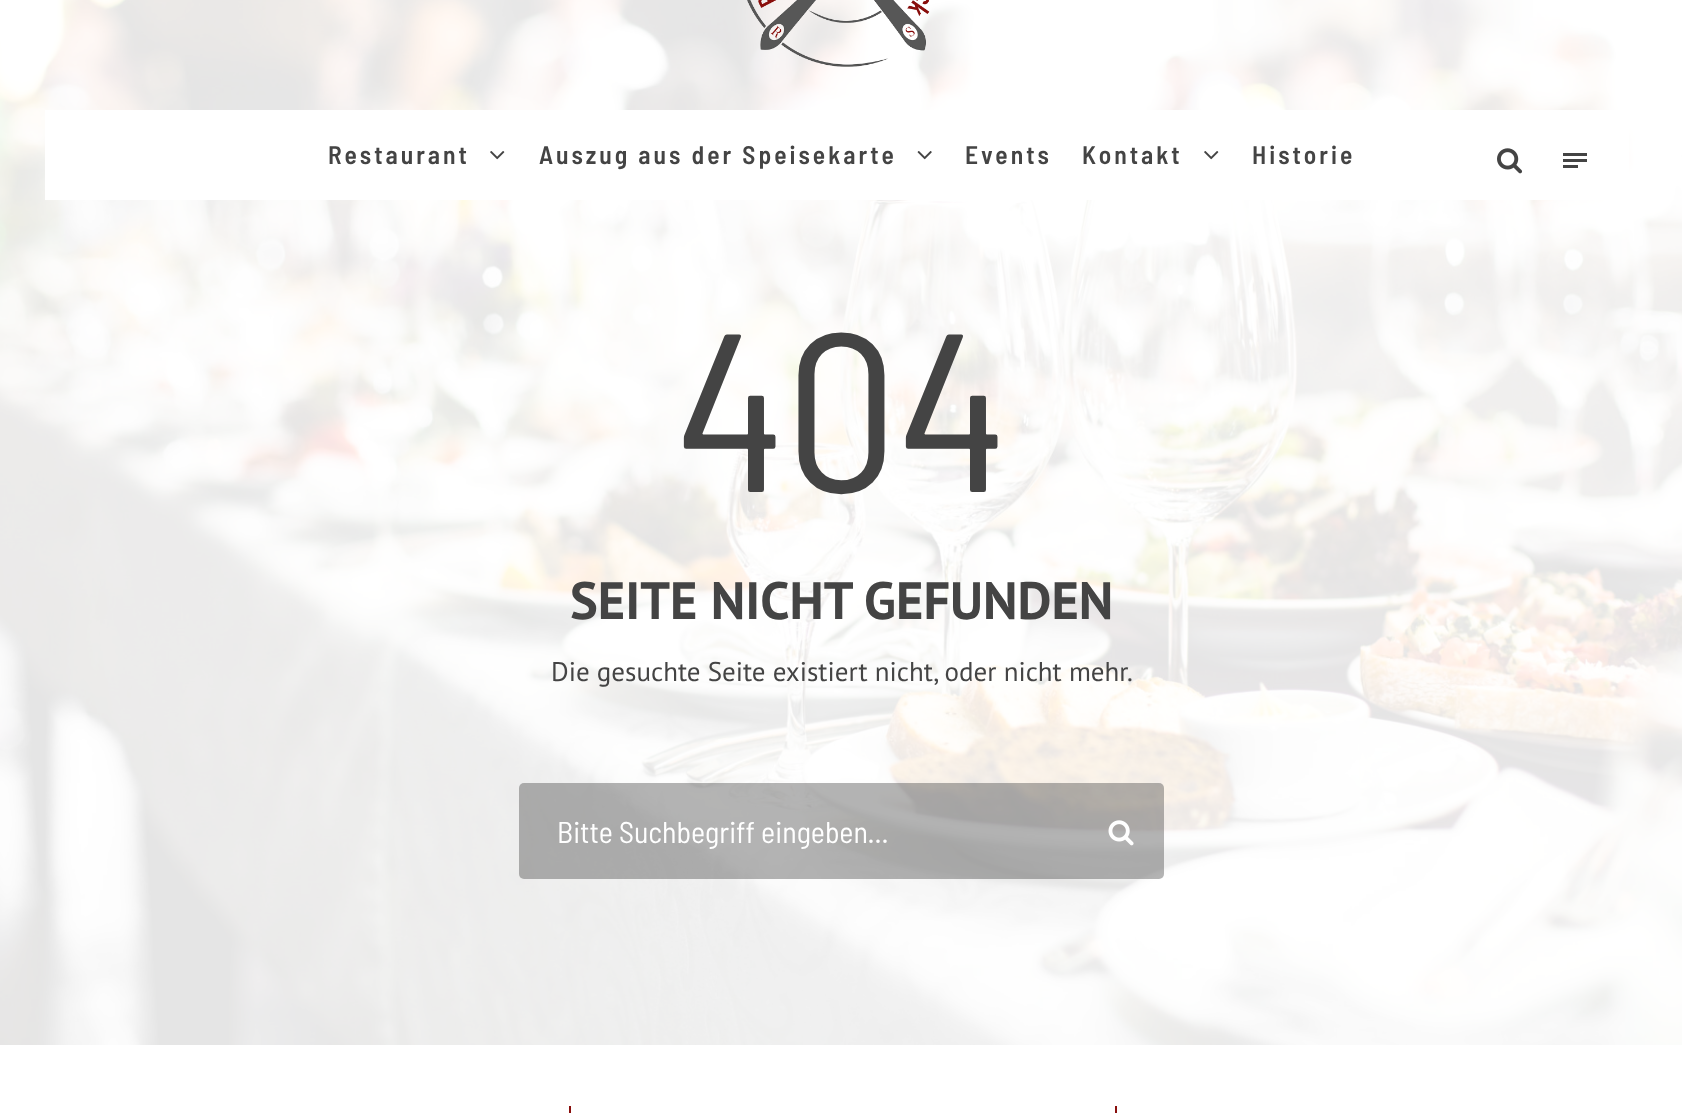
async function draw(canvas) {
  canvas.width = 1682
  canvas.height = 1113
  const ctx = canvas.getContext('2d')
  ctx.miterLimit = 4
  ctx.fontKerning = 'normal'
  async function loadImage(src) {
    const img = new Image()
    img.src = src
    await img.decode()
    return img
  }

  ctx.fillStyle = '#fff'
  ctx.fillRect(0, 0, 1682, 1113)
  ctx.drawImage(await loadImage('image4.png'), 0, 0, 1682, 1045)
  ctx.drawImage(await loadImage('image0.png'), 747, 0, 183, 67)
  ctx.fillRect(45, 110, 1584, 90)
  ctx.letterSpacing = '3px'
  ctx.font = '600 25.5px Barlow Semi Condensed'
  ctx.fillStyle = '#444'
  ctx.fillText('Restaurant', 328, 164)
  ctx.drawImage(await loadImage('image1.png'), 490, 151, 15, 9)
  ctx.fillText('Auszug aus der Speisekarte', 539, 164)
  ctx.drawImage(await loadImage('image2.png'), 917, 151, 15, 9)
  ctx.fillText('Events', 965, 164)
  ctx.fillText('Kontakt', 1082, 164)
  ctx.drawImage(await loadImage('image1.png'), 1204, 151, 15, 9)
  ctx.fillText('Historie', 1252, 164)
  ctx.drawImage(await loadImage('image3.png'), 1497, 148, 26, 26)
  ctx.fillRect(1563, 153, 24, 3)
  ctx.fillRect(1563, 159, 24, 3)
  ctx.fillRect(1563, 165, 15, 3)
  ctx.letterSpacing = '0px'
  ctx.font = '225px Barlow Semi Condensed'
  ctx.fillText('404', 676, 492)
  ctx.font = 'bold 52.5px PT Sans'
  ctx.fillText('SEITE NICHT GEFUNDEN', 570, 619)
  ctx.font = '27px PT Sans'
  ctx.fillText('Die gesuchte Seite existiert nicht, oder nicht mehr.', 551, 681)
  ctx.fillStyle = '#44444466'
  ctx.beginPath()
  ctx.roundRect(519, 783, 645, 96, 5)
  ctx.fill()
  ctx.font = '30px Barlow Semi Condensed'
  ctx.fillStyle = '#fff'
  ctx.fillText('Bitte Suchbegriff eingeben...', 557, 843)
  ctx.drawImage(await loadImage('image5.png'), 1108, 820, 26, 26)
  ctx.fillStyle = '#890f0d'
  ctx.fillRect(569, 1106, 2, 7)
  ctx.fillRect(1115, 1106, 2, 7)
}

draw(document.querySelector('canvas'))
